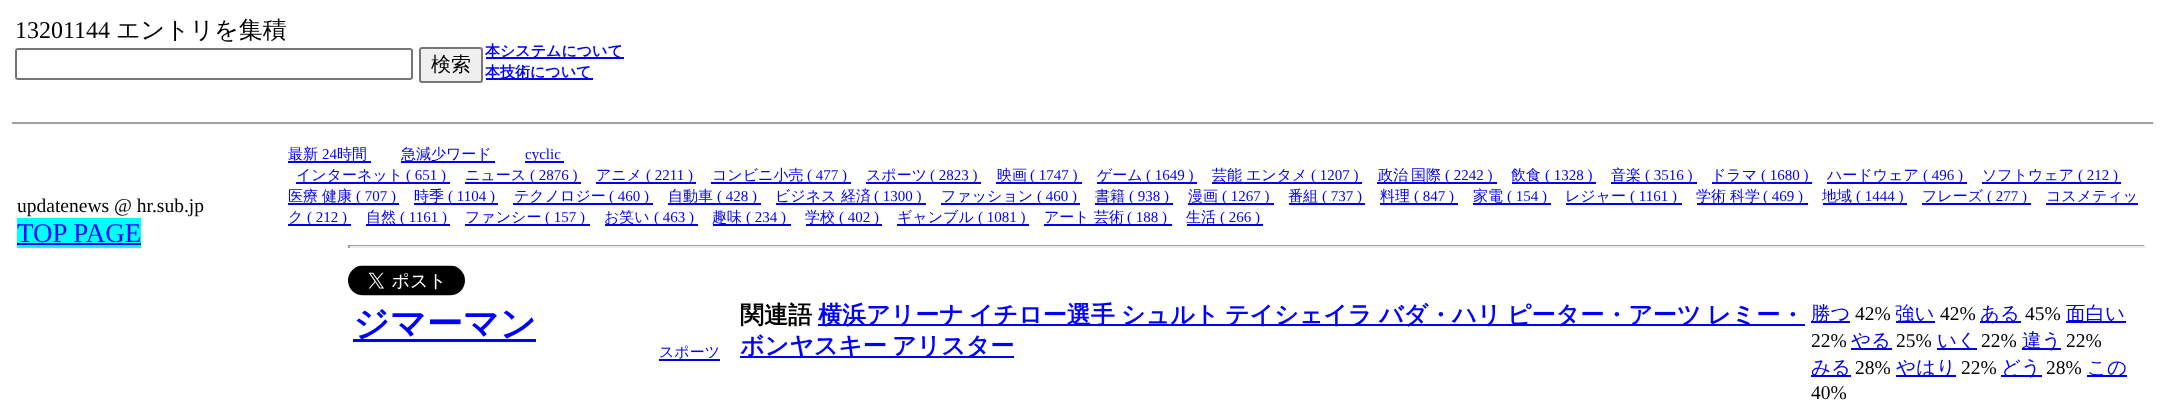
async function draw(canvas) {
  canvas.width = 2165
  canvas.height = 409
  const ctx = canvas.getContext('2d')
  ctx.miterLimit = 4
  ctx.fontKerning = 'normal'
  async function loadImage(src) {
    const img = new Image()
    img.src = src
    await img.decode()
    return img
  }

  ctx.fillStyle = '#fff'
  ctx.fillRect(0, 0, 2165, 409)
  ctx.font = '24px Liberation Serif'
  ctx.fillStyle = '#000'
  ctx.fillText('13201144', 15, 38)
  ctx.font = '500 24px WenQuanYi Zen Hei'
  ctx.fillText('エントリを集積', 116, 38)
  ctx.beginPath()
  ctx.roundRect(16, 49, 396, 30, 2)
  ctx.strokeStyle = '#767676'
  ctx.lineWidth = 2
  ctx.stroke()
  ctx.fillStyle = '#efefef'
  ctx.beginPath()
  ctx.roundRect(420, 48, 62, 34, 2)
  ctx.fill()
  ctx.stroke()
  ctx.font = '500 20px WenQuanYi Zen Hei'
  ctx.fillStyle = '#000'
  ctx.fillText('検索', 431, 71)
  ctx.fillStyle = '#00f'
  ctx.fillRect(486, 57, 138, 2)
  ctx.font = 'bold 15px WenQuanYi Zen Hei'
  ctx.fillText('本システムについて', 485, 56)
  ctx.fillRect(486, 78, 107, 2)
  ctx.fillText('本技術について', 485, 77)
  ctx.fillStyle = '#9f9f9f'
  ctx.fillRect(12, 122, 2142, 2)
  ctx.fillStyle = '#eee'
  ctx.fillRect(2153, 122, 2, 2)
  ctx.font = '19.5px Liberation Serif'
  ctx.fillStyle = '#000'
  ctx.fillText('updatenews @ hr.sub.jp', 17, 212)
  ctx.fillStyle = '#0ff'
  ctx.fillRect(17, 218, 124, 30)
  ctx.font = '27px Liberation Serif'
  ctx.fillStyle = '#00f'
  ctx.fillText('TOP PAGE', 17, 242)
  ctx.fillRect(17, 243, 124, 2)
  ctx.font = '500 15px WenQuanYi Zen Hei'
  ctx.fillStyle = '#00e'
  ctx.fillText('最新', 288, 159)
  ctx.font = '15px Liberation Serif'
  ctx.fillText('24', 322, 159)
  ctx.fillRect(288, 161, 83, 2)
  ctx.font = '500 15px WenQuanYi Zen Hei'
  ctx.fillText('時間', 337, 159)
  ctx.fillRect(401, 161, 94, 2)
  ctx.fillText('急減少ワード', 401, 159)
  ctx.fillRect(525, 161, 39, 2)
  ctx.font = '15px Liberation Serif'
  ctx.fillText('cyclic', 525, 159)
  ctx.fillRect(296, 182, 154, 2)
  ctx.font = '500 15px WenQuanYi Zen Hei'
  ctx.fillText('インターネット', 296, 180)
  ctx.font = '15px Liberation Serif'
  ctx.fillText('( 651 )', 406, 180)
  ctx.font = '500 15px WenQuanYi Zen Hei'
  ctx.fillText('ニュース', 465, 180)
  ctx.fillRect(465, 182, 116, 2)
  ctx.font = '15px Liberation Serif'
  ctx.fillText('( 2876 )', 530, 180)
  ctx.font = '500 15px WenQuanYi Zen Hei'
  ctx.fillText('アニメ', 596, 180)
  ctx.fillRect(596, 182, 100, 2)
  ctx.font = '15px Liberation Serif'
  ctx.fillText('( 2211 )', 646, 180)
  ctx.font = '500 15px WenQuanYi Zen Hei'
  ctx.fillText('コンビニ小売', 712, 180)
  ctx.fillRect(711, 182, 140, 2)
  ctx.font = '15px Liberation Serif'
  ctx.fillText('( 477 )', 807, 180)
  ctx.font = '500 15px WenQuanYi Zen Hei'
  ctx.fillText('スポーツ', 866, 180)
  ctx.fillRect(866, 182, 115, 2)
  ctx.font = '15px Liberation Serif'
  ctx.fillText('( 2823 )', 930, 180)
  ctx.font = '500 15px WenQuanYi Zen Hei'
  ctx.fillText('映画', 997, 180)
  ctx.fillRect(996, 182, 86, 2)
  ctx.font = '15px Liberation Serif'
  ctx.fillText('( 1747 )', 1030, 180)
  ctx.font = '500 15px WenQuanYi Zen Hei'
  ctx.fillText('ゲーム', 1097, 180)
  ctx.fillRect(1097, 182, 100, 2)
  ctx.font = '15px Liberation Serif'
  ctx.fillText('( 1649 )', 1146, 180)
  ctx.fillRect(1212, 182, 150, 2)
  ctx.font = '500 15px WenQuanYi Zen Hei'
  ctx.fillText('芸能', 1212, 180)
  ctx.fillText('エンタメ', 1246, 180)
  ctx.font = '15px Liberation Serif'
  ctx.fillText('( 1207 )', 1311, 180)
  ctx.fillRect(1377, 182, 120, 2)
  ctx.font = '500 15px WenQuanYi Zen Hei'
  ctx.fillText('政治', 1378, 180)
  ctx.fillText('国際', 1411, 180)
  ctx.font = '15px Liberation Serif'
  ctx.fillText('( 2242 )', 1445, 180)
  ctx.font = '500 15px WenQuanYi Zen Hei'
  ctx.fillText('飲食', 1511, 180)
  ctx.fillRect(1512, 182, 84, 2)
  ctx.font = '15px Liberation Serif'
  ctx.fillText('( 1328 )', 1545, 180)
  ctx.fillRect(1611, 182, 86, 2)
  ctx.font = '500 15px WenQuanYi Zen Hei'
  ctx.fillText('音楽', 1611, 180)
  ctx.font = '15px Liberation Serif'
  ctx.fillText('( 3516 )', 1645, 180)
  ctx.font = '500 15px WenQuanYi Zen Hei'
  ctx.fillText('ドラマ', 1711, 180)
  ctx.fillRect(1712, 182, 100, 2)
  ctx.font = '15px Liberation Serif'
  ctx.fillText('( 1680 )', 1761, 180)
  ctx.font = '500 15px WenQuanYi Zen Hei'
  ctx.fillText('ハードウェア', 1827, 180)
  ctx.fillRect(1827, 182, 140, 2)
  ctx.font = '15px Liberation Serif'
  ctx.fillText('( 496 )', 1923, 180)
  ctx.font = '500 15px WenQuanYi Zen Hei'
  ctx.fillText('ソフトウェア', 1982, 180)
  ctx.fillRect(1982, 182, 139, 2)
  ctx.font = '15px Liberation Serif'
  ctx.fillText('( 212 )', 2078, 180)
  ctx.font = '500 15px WenQuanYi Zen Hei'
  ctx.fillText('医療', 288, 201)
  ctx.fillText('健康', 322, 201)
  ctx.fillRect(288, 203, 111, 2)
  ctx.font = '15px Liberation Serif'
  ctx.fillText('( 707 )', 356, 201)
  ctx.font = '500 15px WenQuanYi Zen Hei'
  ctx.fillText('時季', 414, 201)
  ctx.fillRect(414, 203, 84, 2)
  ctx.font = '15px Liberation Serif'
  ctx.fillText('( 1104 )', 448, 201)
  ctx.font = '500 15px WenQuanYi Zen Hei'
  ctx.fillText('テクノロジー', 514, 201)
  ctx.fillRect(513, 203, 140, 2)
  ctx.font = '15px Liberation Serif'
  ctx.fillText('( 460 )', 609, 201)
  ctx.font = '500 15px WenQuanYi Zen Hei'
  ctx.fillText('自動車', 668, 201)
  ctx.fillRect(668, 203, 93, 2)
  ctx.font = '15px Liberation Serif'
  ctx.fillText('( 428 )', 717, 201)
  ctx.font = '500 15px WenQuanYi Zen Hei'
  ctx.fillText('ビジネス', 775, 201)
  ctx.fillText('経済', 841, 201)
  ctx.fillRect(776, 203, 150, 2)
  ctx.font = '15px Liberation Serif'
  ctx.fillText('( 1300 )', 874, 201)
  ctx.font = '500 15px WenQuanYi Zen Hei'
  ctx.fillText('ファッション', 941, 201)
  ctx.fillRect(941, 203, 139, 2)
  ctx.font = '15px Liberation Serif'
  ctx.fillText('( 460 )', 1037, 201)
  ctx.font = '500 15px WenQuanYi Zen Hei'
  ctx.fillText('書籍', 1095, 201)
  ctx.fillRect(1095, 203, 78, 2)
  ctx.font = '15px Liberation Serif'
  ctx.fillText('( 938 )', 1129, 201)
  ctx.font = '500 15px WenQuanYi Zen Hei'
  ctx.fillText('漫画', 1188, 201)
  ctx.fillRect(1188, 203, 86, 2)
  ctx.font = '15px Liberation Serif'
  ctx.fillText('( 1267 )', 1222, 201)
  ctx.font = '500 15px WenQuanYi Zen Hei'
  ctx.fillText('番組', 1288, 201)
  ctx.fillRect(1289, 203, 76, 2)
  ctx.font = '15px Liberation Serif'
  ctx.fillText('( 737 )', 1322, 201)
  ctx.font = '500 15px WenQuanYi Zen Hei'
  ctx.fillText('料理', 1380, 201)
  ctx.fillRect(1380, 203, 78, 2)
  ctx.font = '15px Liberation Serif'
  ctx.fillText('( 847 )', 1414, 201)
  ctx.fillRect(1473, 203, 78, 2)
  ctx.font = '500 15px WenQuanYi Zen Hei'
  ctx.fillText('家電', 1473, 201)
  ctx.font = '15px Liberation Serif'
  ctx.fillText('( 154 )', 1507, 201)
  ctx.font = '500 15px WenQuanYi Zen Hei'
  ctx.fillText('レジャー', 1565, 201)
  ctx.fillRect(1566, 203, 116, 2)
  ctx.font = '15px Liberation Serif'
  ctx.fillText('( 1161 )', 1630, 201)
  ctx.font = '500 15px WenQuanYi Zen Hei'
  ctx.fillText('学術', 1696, 201)
  ctx.fillText('科学', 1730, 201)
  ctx.fillRect(1697, 203, 111, 2)
  ctx.font = '15px Liberation Serif'
  ctx.fillText('( 469 )', 1763, 201)
  ctx.font = '500 15px WenQuanYi Zen Hei'
  ctx.fillText('地域', 1822, 201)
  ctx.fillRect(1823, 203, 84, 2)
  ctx.font = '15px Liberation Serif'
  ctx.fillText('( 1444 )', 1856, 201)
  ctx.font = '500 15px WenQuanYi Zen Hei'
  ctx.fillText('フレーズ', 1922, 201)
  ctx.fillRect(1922, 203, 109, 2)
  ctx.font = '15px Liberation Serif'
  ctx.fillText('( 277 )', 1987, 201)
  ctx.font = '500 15px WenQuanYi Zen Hei'
  ctx.fillText('コスメティッ', 2046, 201)
  ctx.fillRect(2046, 203, 92, 2)
  ctx.fillText('ク', 288, 222)
  ctx.fillRect(288, 224, 63, 2)
  ctx.font = '15px Liberation Serif'
  ctx.fillText('( 212 )', 307, 222)
  ctx.fillRect(366, 224, 84, 2)
  ctx.font = '500 15px WenQuanYi Zen Hei'
  ctx.fillText('自然', 366, 222)
  ctx.font = '15px Liberation Serif'
  ctx.fillText('( 1161 )', 400, 222)
  ctx.font = '500 15px WenQuanYi Zen Hei'
  ctx.fillText('ファンシー', 465, 222)
  ctx.fillRect(465, 224, 125, 2)
  ctx.font = '15px Liberation Serif'
  ctx.fillText('( 157 )', 545, 222)
  ctx.fillRect(605, 224, 93, 2)
  ctx.font = '500 15px WenQuanYi Zen Hei'
  ctx.fillText('お笑い', 604, 222)
  ctx.font = '15px Liberation Serif'
  ctx.fillText('( 463 )', 654, 222)
  ctx.fillRect(713, 224, 78, 2)
  ctx.font = '500 15px WenQuanYi Zen Hei'
  ctx.fillText('趣味', 712, 222)
  ctx.font = '15px Liberation Serif'
  ctx.fillText('( 234 )', 746, 222)
  ctx.fillRect(806, 224, 76, 2)
  ctx.font = '500 15px WenQuanYi Zen Hei'
  ctx.fillText('学校', 805, 222)
  ctx.font = '15px Liberation Serif'
  ctx.fillText('( 402 )', 839, 222)
  ctx.fillRect(897, 224, 132, 2)
  ctx.font = '500 15px WenQuanYi Zen Hei'
  ctx.fillText('ギャンブル', 897, 222)
  ctx.font = '15px Liberation Serif'
  ctx.fillText('( 1081 )', 978, 222)
  ctx.font = '500 15px WenQuanYi Zen Hei'
  ctx.fillText('アート', 1044, 222)
  ctx.fillRect(1044, 224, 128, 2)
  ctx.fillText('芸術', 1094, 222)
  ctx.font = '15px Liberation Serif'
  ctx.fillText('( 188 )', 1127, 222)
  ctx.font = '500 15px WenQuanYi Zen Hei'
  ctx.fillText('生活', 1186, 222)
  ctx.fillRect(1187, 224, 76, 2)
  ctx.font = '15px Liberation Serif'
  ctx.fillText('( 266 )', 1220, 222)
  ctx.fillStyle = '#9f9f9f'
  ctx.fillRect(348, 245, 1797, 1)
  ctx.fillStyle = '#eee'
  ctx.fillRect(2144, 245, 2, 3)
  ctx.fillRect(348, 246, 1797, 2)
  ctx.fillStyle = '#9f9f9f'
  ctx.fillRect(348, 245, 2, 3)
  ctx.drawImage(await loadImage('image0.png'), 348, 265, 117, 31)
  ctx.fillStyle = '#00f'
  ctx.fillRect(353, 339, 183, 3)
  ctx.font = 'bold 36px WenQuanYi Zen Hei'
  ctx.fillText('ジマーマン', 353, 336)
  ctx.font = 'bold 24px WenQuanYi Zen Hei'
  ctx.fillStyle = '#000'
  ctx.fillText('関連語', 740, 323)
  ctx.fillStyle = '#00f'
  ctx.fillRect(818, 324, 987, 2)
  ctx.fillText('横浜アリーナ', 818, 323)
  ctx.fillText('イチロー選手', 969, 323)
  ctx.fillText('シュルト', 1121, 323)
  ctx.fillText('テイシェイラ', 1225, 323)
  ctx.fillText('バダ・ハリ', 1379, 323)
  ctx.fillText('ピーター・アーツ', 1507, 323)
  ctx.fillText('レミー・', 1707, 323)
  ctx.fillRect(740, 356, 274, 2)
  ctx.fillText('ボンヤスキー', 740, 354)
  ctx.fillText('アリスター', 892, 354)
  ctx.fillStyle = '#00e'
  ctx.fillRect(1811, 321, 39, 2)
  ctx.font = '500 19.5px WenQuanYi Zen Hei'
  ctx.fillText('勝つ', 1811, 320)
  ctx.font = '19.5px Liberation Serif'
  ctx.fillStyle = '#000'
  ctx.fillText('42%', 1855, 320)
  ctx.fillStyle = '#00e'
  ctx.fillRect(1896, 321, 39, 2)
  ctx.font = '500 19.5px WenQuanYi Zen Hei'
  ctx.fillText('強い', 1895, 320)
  ctx.font = '19.5px Liberation Serif'
  ctx.fillStyle = '#000'
  ctx.fillText('42%', 1940, 320)
  ctx.fillStyle = '#00e'
  ctx.fillRect(1980, 321, 41, 2)
  ctx.font = '500 19.5px WenQuanYi Zen Hei'
  ctx.fillText('ある', 1980, 320)
  ctx.font = '19.5px Liberation Serif'
  ctx.fillStyle = '#000'
  ctx.fillText('45%', 2025, 320)
  ctx.fillStyle = '#00e'
  ctx.fillRect(2066, 321, 60, 2)
  ctx.font = '500 19.5px WenQuanYi Zen Hei'
  ctx.fillText('面白い', 2066, 320)
  ctx.font = '19.5px Liberation Serif'
  ctx.fillStyle = '#000'
  ctx.fillText('22%', 1811, 347)
  ctx.fillStyle = '#00e'
  ctx.fillRect(1851, 348, 41, 2)
  ctx.font = '500 19.5px WenQuanYi Zen Hei'
  ctx.fillText('やる', 1851, 347)
  ctx.font = '19.5px Liberation Serif'
  ctx.fillStyle = '#000'
  ctx.fillText('25%', 1896, 347)
  ctx.fillStyle = '#00e'
  ctx.fillRect(1937, 348, 40, 2)
  ctx.font = '500 19.5px WenQuanYi Zen Hei'
  ctx.fillText('いく', 1937, 347)
  ctx.font = '19.5px Liberation Serif'
  ctx.fillStyle = '#000'
  ctx.fillText('22%', 1981, 347)
  ctx.fillStyle = '#00e'
  ctx.fillRect(2022, 348, 39, 2)
  ctx.font = '500 19.5px WenQuanYi Zen Hei'
  ctx.fillText('違う', 2022, 347)
  ctx.font = '19.5px Liberation Serif'
  ctx.fillStyle = '#000'
  ctx.fillText('22%', 2066, 347)
  ctx.fillStyle = '#00e'
  ctx.fillRect(1811, 375, 40, 2)
  ctx.font = '500 19.5px WenQuanYi Zen Hei'
  ctx.fillText('みる', 1811, 374)
  ctx.font = '19.5px Liberation Serif'
  ctx.fillStyle = '#000'
  ctx.fillText('28%', 1855, 374)
  ctx.fillStyle = '#00e'
  ctx.fillRect(1896, 375, 60, 2)
  ctx.font = '500 19.5px WenQuanYi Zen Hei'
  ctx.fillText('やはり', 1896, 374)
  ctx.font = '19.5px Liberation Serif'
  ctx.fillStyle = '#000'
  ctx.fillText('22%', 1961, 374)
  ctx.fillStyle = '#00e'
  ctx.fillRect(2001, 375, 41, 2)
  ctx.font = '500 19.5px WenQuanYi Zen Hei'
  ctx.fillText('どう', 2001, 374)
  ctx.font = '19.5px Liberation Serif'
  ctx.fillStyle = '#000'
  ctx.fillText('28%', 2046, 374)
  ctx.fillStyle = '#00e'
  ctx.fillRect(2087, 375, 40, 2)
  ctx.font = '500 19.5px WenQuanYi Zen Hei'
  ctx.fillText('この', 2087, 374)
  ctx.font = '19.5px Liberation Serif'
  ctx.fillStyle = '#000'
  ctx.fillText('40%', 1811, 399)
  ctx.font = '500 15px WenQuanYi Zen Hei'
  ctx.fillStyle = '#00e'
  ctx.fillText('スポーツ', 659, 357)
  ctx.fillRect(659, 359, 61, 2)
}

draw(document.querySelector('canvas'))
